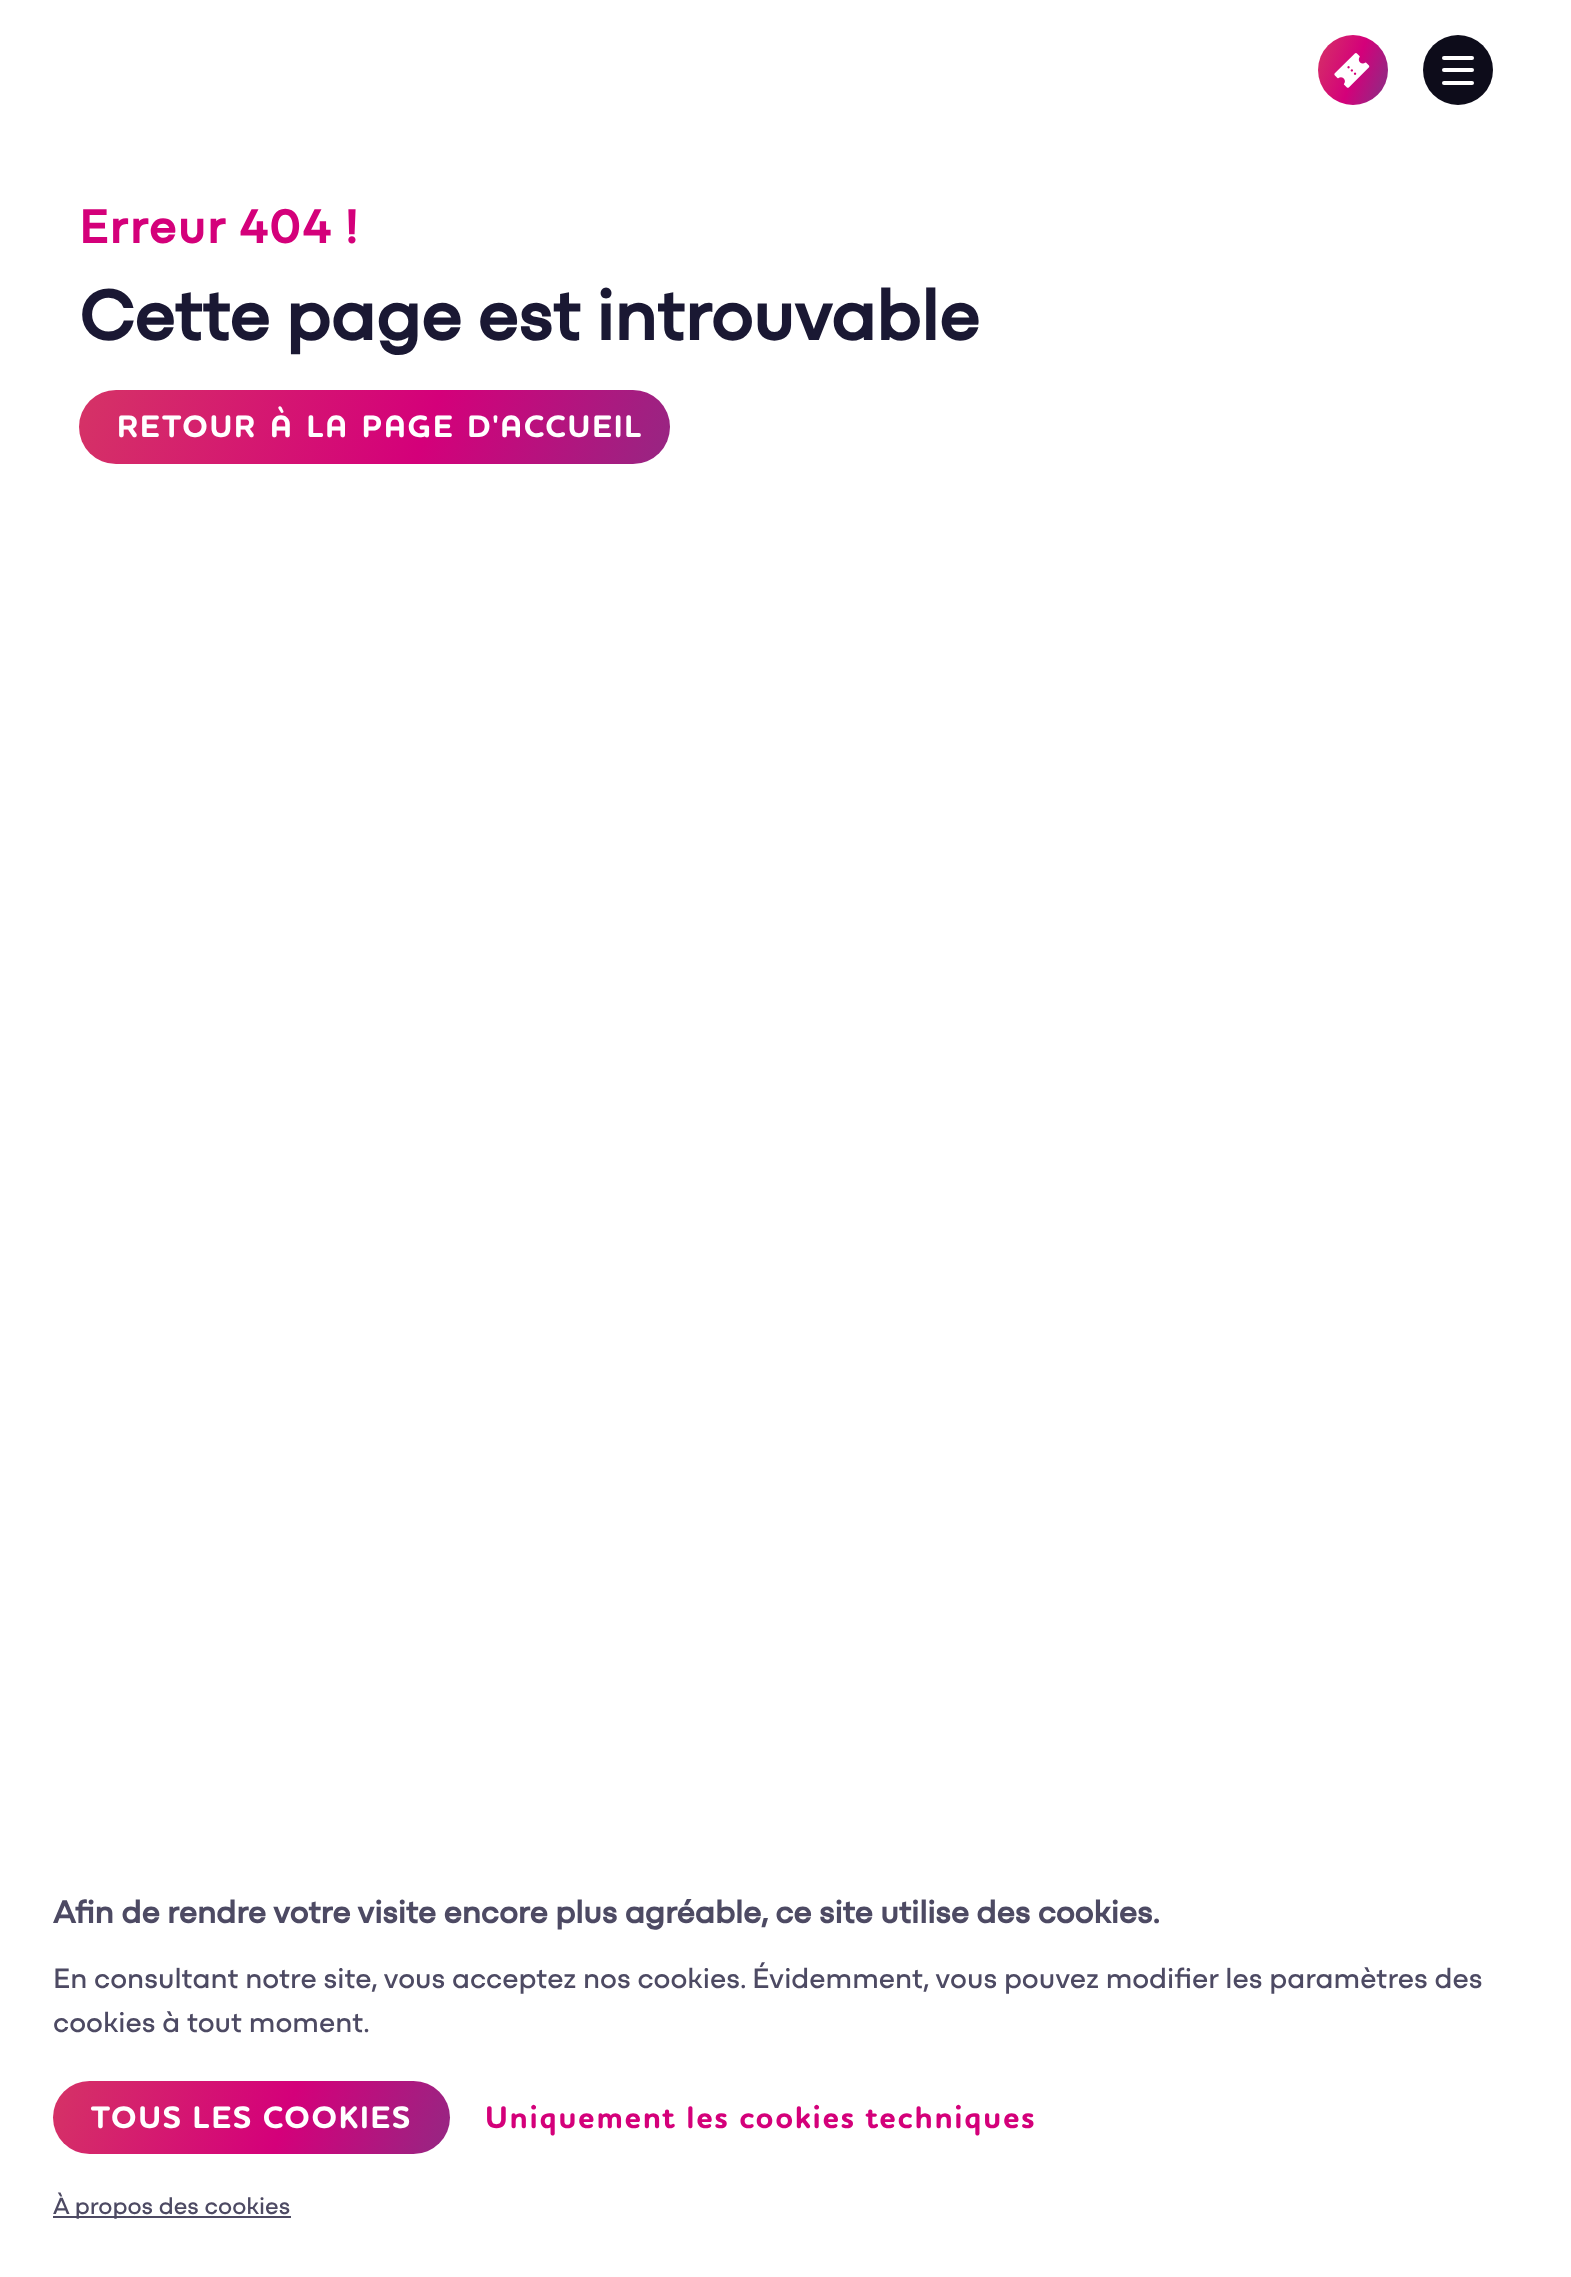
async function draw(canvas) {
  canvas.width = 1571
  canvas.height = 2277
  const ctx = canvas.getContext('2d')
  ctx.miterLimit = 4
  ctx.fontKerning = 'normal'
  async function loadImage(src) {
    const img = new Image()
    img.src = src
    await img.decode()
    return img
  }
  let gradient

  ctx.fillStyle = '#fff'
  ctx.fillRect(0, 0, 1571, 2277)
  gradient = ctx.createLinearGradient(1315, 43, 1461, 97)
  gradient.addColorStop(0, '#d53366')
  gradient.addColorStop(0.3, '#d4007a')
  gradient.addColorStop(0.5, '#9a2482')
  gradient.addColorStop(0.8, '#d4007a')
  ctx.fillStyle = gradient
  ctx.beginPath()
  ctx.arc(1353, 70, 35, 0, 2 * Math.PI)
  ctx.fill()
  ctx.drawImage(await loadImage('image0.png'), 1334, 53, 36, 35)
  ctx.fillStyle = '#0d0c1a'
  ctx.beginPath()
  ctx.arc(1458, 70, 35, 0, 2 * Math.PI)
  ctx.fill()
  ctx.fillStyle = '#fff'
  ctx.beginPath()
  ctx.roundRect(1442, 68, 32, 4, 2)
  ctx.fill()
  ctx.beginPath()
  ctx.roundRect(1442, 56, 32, 4, 2)
  ctx.fill()
  ctx.beginPath()
  ctx.roundRect(1442, 81, 32, 4, 2)
  ctx.fill()
  ctx.letterSpacing = '1.75px'
  ctx.font = 'bold 49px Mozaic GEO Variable'
  ctx.fillStyle = '#d4007a'
  ctx.fillText('Erreur 404 !', 79, 243)
  ctx.letterSpacing = '0px'
  ctx.wordSpacing = '-1px'
  ctx.font = 'bold 73.4px Mozaic GEO Variable'
  ctx.fillStyle = '#1a1833'
  ctx.fillText('Cette page est introuvable', 79, 340)
  gradient = ctx.createLinearGradient(136, 233, 1204, 621)
  gradient.addColorStop(0, '#d53366')
  gradient.addColorStop(0.3, '#d4007a')
  gradient.addColorStop(0.5, '#9a2482')
  gradient.addColorStop(0.8, '#d4007a')
  ctx.fillStyle = gradient
  ctx.beginPath()
  ctx.roundRect(79, 390, 591, 74, 37)
  ctx.fill()
  ctx.letterSpacing = '1.75px'
  ctx.wordSpacing = '3px'
  ctx.font = 'bold 31.5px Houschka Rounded'
  ctx.fillStyle = '#fff'
  ctx.fillText('RETOUR À LA PAGE D\'ACCUEIL', 117, 437)
  ctx.letterSpacing = '0px'
  ctx.wordSpacing = '0px'
  ctx.font = 'bold 32.8px Mozaic GEO Variable'
  ctx.fillStyle = '#4d4a63'
  ctx.fillText('Afin de rendre votre visite encore plus agréable, ce site utilise des cookies.', 53, 1923)
  ctx.font = '29.3px Mozaic GEO Variable'
  ctx.fillText('En consultant notre site, vous acceptez nos cookies. Évidemment, vous pouvez modifier les paramètres des', 53, 1988)
  ctx.fillText('cookies à tout moment.', 53, 2032)
  gradient = ctx.createLinearGradient(87, 1986, 812, 2249)
  gradient.addColorStop(0, '#d53366')
  gradient.addColorStop(0.3, '#d4007a')
  gradient.addColorStop(0.5, '#9a2482')
  gradient.addColorStop(0.8, '#d4007a')
  ctx.fillStyle = gradient
  ctx.beginPath()
  ctx.roundRect(53, 2081, 397, 73, 36.5)
  ctx.fill()
  ctx.letterSpacing = '1.75px'
  ctx.font = 'bold 31.5px Houschka Rounded'
  ctx.fillStyle = '#fff'
  ctx.fillText('TOUS LES COOKIES', 91, 2128)
  ctx.fillStyle = '#d4007a'
  ctx.fillText('Uniquement les cookies techniques', 485, 2128)
  ctx.fillStyle = '#4d4a63'
  ctx.fillRect(53, 2216, 238, 2)
  ctx.letterSpacing = '0px'
  ctx.font = '24.5px Mozaic GEO Variable'
  ctx.fillText('À propos des cookies', 53, 2214)
}

draw(document.querySelector('canvas'))
